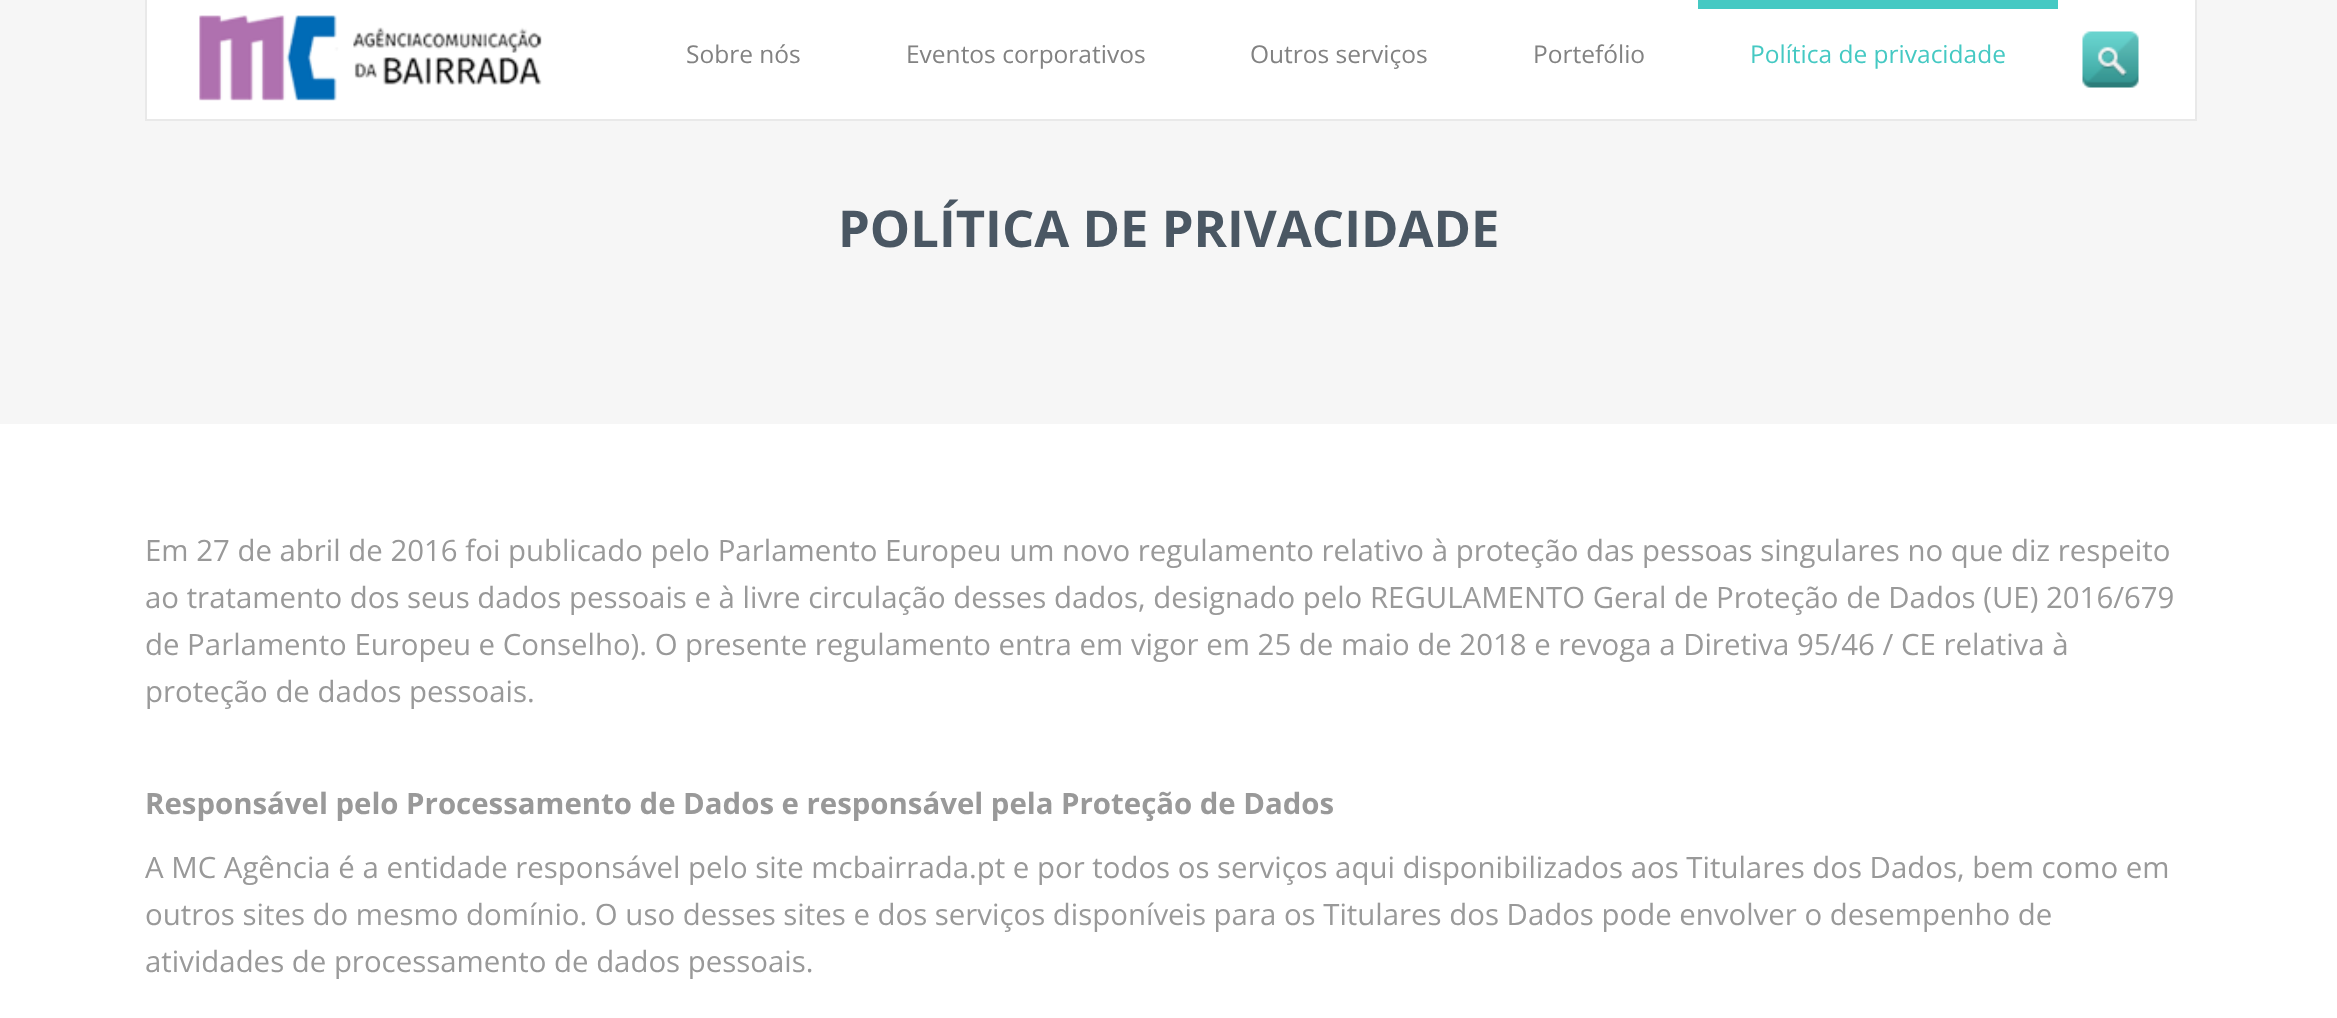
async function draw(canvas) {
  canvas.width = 2337
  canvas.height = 1018
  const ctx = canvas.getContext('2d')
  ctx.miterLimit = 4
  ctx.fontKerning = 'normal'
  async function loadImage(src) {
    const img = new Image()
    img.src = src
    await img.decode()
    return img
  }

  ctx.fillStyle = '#fff'
  ctx.fillRect(0, 0, 2337, 1018)
  ctx.fillStyle = '#f6f6f6'
  ctx.fillRect(0, 0, 2337, 424)
  ctx.fillStyle = '#fff'
  ctx.fillRect(147, 0, 2048, 119)
  ctx.fillStyle = '#e9e9e9'
  ctx.fillRect(2195, 0, 2, 121)
  ctx.fillRect(145, 119, 2051, 2)
  ctx.fillRect(145, 0, 2, 121)
  ctx.drawImage(await loadImage('image0.png'), 199, 15, 343, 86)
  ctx.font = '24.5px Open Sans'
  ctx.fillStyle = '#828282'
  ctx.fillText('Sobre nós', 686, 63)
  ctx.fillText('Eventos corporativos', 906, 63)
  ctx.fillText('Outros serviços', 1250, 63)
  ctx.fillText('Portefólio', 1533, 63)
  ctx.fillStyle = '#45c9c3'
  ctx.fillRect(1698, 0, 360, 9)
  ctx.fillText('Política de privacidade', 1750, 63)
  ctx.drawImage(await loadImage('image1.png'), 2082, 31, 57, 57)
  ctx.font = 'bold 50.75px Open Sans'
  ctx.fillStyle = '#4a5763'
  ctx.fillText('POLÍTICA DE PRIVACIDADE', 838, 247)
  ctx.font = '29.4px Open Sans'
  ctx.fillStyle = '#999'
  ctx.fillText('Em 27 de abril de 2016 foi publicado pelo Parlamento Europeu um novo regulamento relativo à proteção das pessoas singulares no que diz respeito', 145, 561)
  ctx.fillText('ao tratamento dos seus dados pessoais e à livre circulação desses dados, designado pelo REGULAMENTO Geral de Proteção de Dados (UE) 2016/679', 145, 608)
  ctx.fillText('de Parlamento Europeu e Conselho). O presente regulamento entra em vigor em 25 de maio de 2018 e revoga a Diretiva 95/46 / CE relativa à', 145, 655)
  ctx.fillText('proteção de dados pessoais.', 145, 702)
  ctx.wordSpacing = '-0.1px'
  ctx.font = 'bold 29.4px Open Sans'
  ctx.fillText('Responsável pelo Processamento de Dados e responsável pela Proteção de Dados', 145, 814)
  ctx.wordSpacing = '0px'
  ctx.font = '29.4px Open Sans'
  ctx.fillText('A MC Agência é a entidade responsável pelo site mcbairrada.pt e por todos os serviços aqui disponibilizados aos Titulares dos Dados, bem como em', 145, 878)
  ctx.fillText('outros sites do mesmo domínio. O uso desses sites e dos serviços disponíveis para os Titulares dos Dados pode envolver o desempenho de', 145, 925)
  ctx.fillText('atividades de processamento de dados pessoais.', 145, 972)
}

draw(document.querySelector('canvas'))
